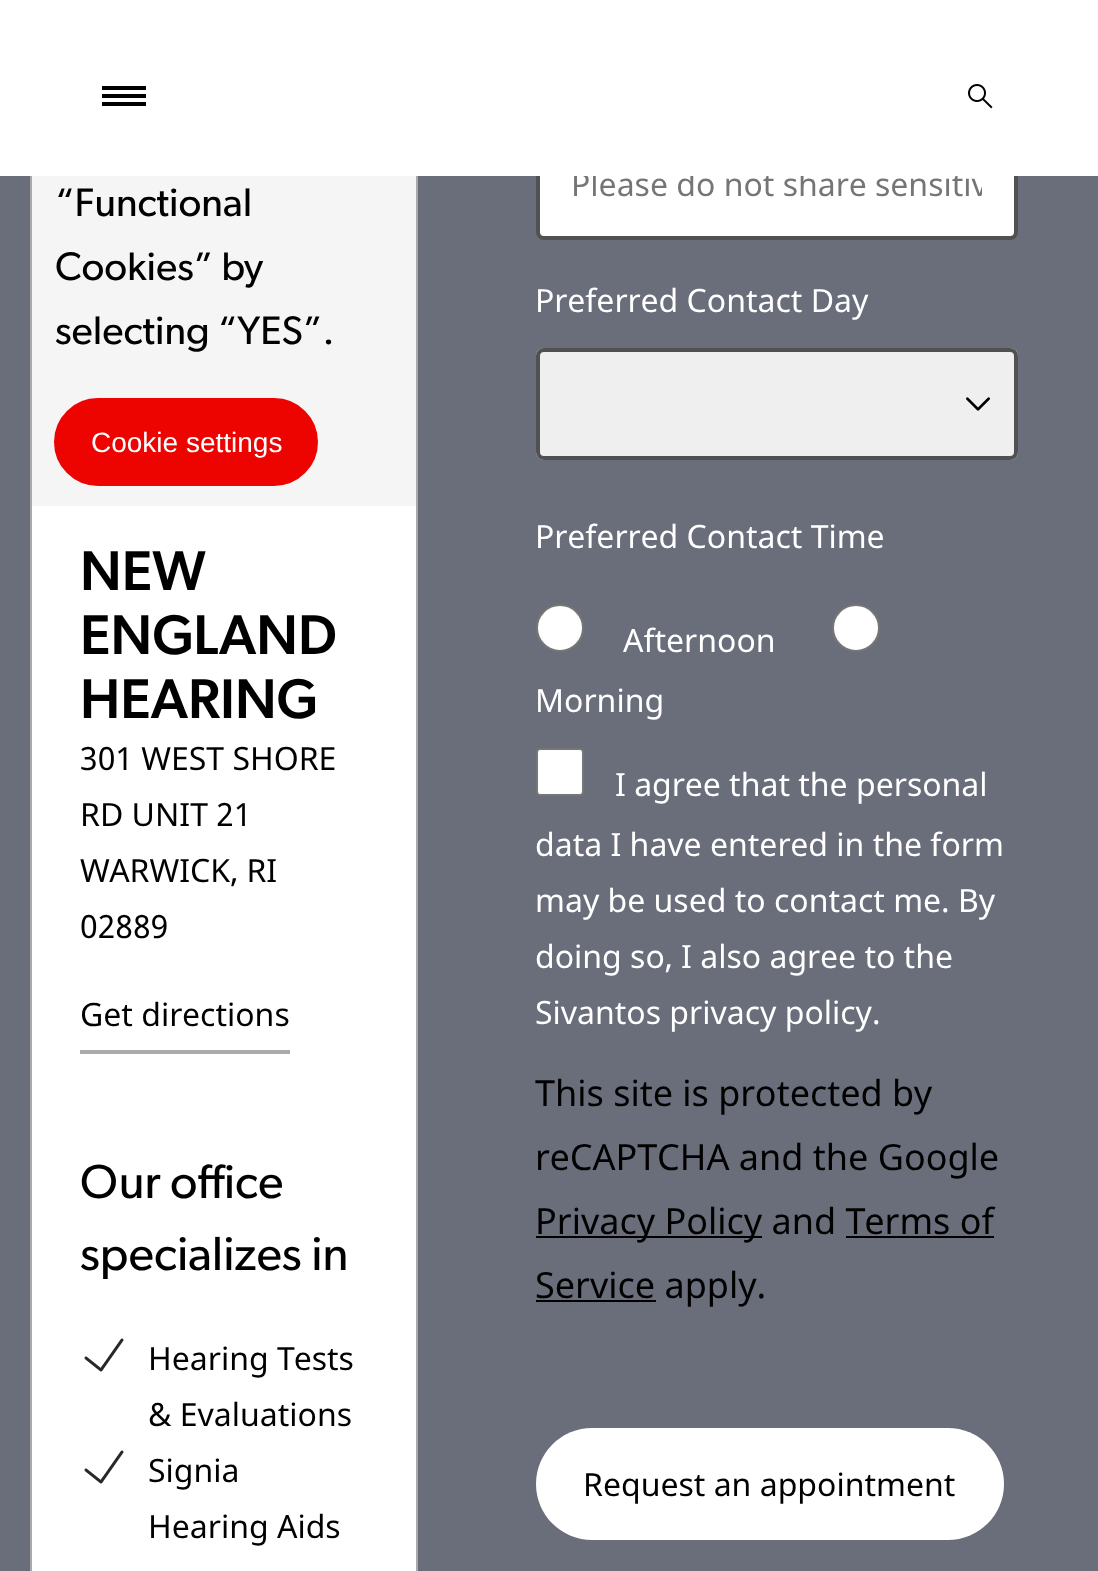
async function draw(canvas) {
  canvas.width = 1098
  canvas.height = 1571
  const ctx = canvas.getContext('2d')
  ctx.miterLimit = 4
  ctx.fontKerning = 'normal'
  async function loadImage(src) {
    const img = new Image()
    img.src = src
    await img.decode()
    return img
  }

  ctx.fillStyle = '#696e7a'
  ctx.fillRect(0, 0, 1098, 1571)
  ctx.fillStyle = '#fff'
  ctx.fillRect(32, 506, 384, 1065)
  ctx.strokeStyle = '#aaa9a8'
  ctx.lineWidth = 2
  ctx.strokeRect(31, -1, 386, 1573)
  ctx.beginPath()
  ctx.roundRect(538, 130, 478, 108, 6)
  ctx.fill()
  ctx.strokeStyle = '#515151'
  ctx.lineWidth = 4
  ctx.stroke()
  ctx.save()
  ctx.beginPath()
  ctx.rect(572, 162, 410, 44)
  ctx.clip()
  ctx.font = '32px Noto Sans'
  ctx.fillStyle = '#757575'
  ctx.fillText('Please do not share sensitiv', 571, 196)
  ctx.restore()
  ctx.fillRect(0, 0, 1098, 176)
  ctx.fillStyle = '#000'
  ctx.fillRect(102, 94, 44, 4)
  ctx.fillRect(102, 86, 44, 4)
  ctx.fillRect(102, 102, 44, 4)
  ctx.drawImage(await loadImage('image0.png'), 968, 84, 25, 25)
  ctx.fillStyle = '#f5f5f5'
  ctx.fillRect(32, 176, 384, 330)
  ctx.font = '40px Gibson'
  ctx.fillStyle = '#000'
  ctx.fillText('“Functional', 55, 216)
  ctx.fillText('Cookies” by', 55, 280)
  ctx.fillText('selecting “YES”.', 55, 344)
  ctx.fillStyle = '#ed0400'
  ctx.beginPath()
  ctx.roundRect(56, 400, 260, 84, 42)
  ctx.fill()
  ctx.strokeStyle = '#ed0400'
  ctx.stroke()
  ctx.font = '28px Liberation Sans'
  ctx.fillStyle = '#fff'
  ctx.fillText('Cookie settings', 91, 452)
  ctx.font = '500 56px Gibson'
  ctx.fillStyle = '#000'
  ctx.fillText('NEW', 80, 590)
  ctx.fillText('ENGLAND', 80, 654)
  ctx.fillText('HEARING', 80, 718)
  ctx.font = '32px Noto Sans'
  ctx.fillText('301 WEST SHORE', 80, 770)
  ctx.fillText('RD UNIT 21', 80, 826)
  ctx.fillText('WARWICK, RI', 80, 882)
  ctx.fillText('02889', 80, 938)
  ctx.fillStyle = '#aaa'
  ctx.fillRect(80, 1050, 210, 4)
  ctx.fillStyle = '#000'
  ctx.fillText('Get directions', 80, 1026)
  ctx.font = '48px Gibson'
  ctx.fillText('Our office', 80, 1198)
  ctx.fillText('specializes in', 80, 1270)
  ctx.drawImage(await loadImage('image1.png'), 84, 1338, 40, 34)
  ctx.font = '32px Noto Sans'
  ctx.fillText('Hearing Tests', 148, 1370)
  ctx.fillText('& Evaluations', 148, 1426)
  ctx.drawImage(await loadImage('image1.png'), 84, 1450, 40, 34)
  ctx.fillText('Signia', 148, 1482)
  ctx.fillText('Hearing Aids', 148, 1538)
  ctx.fillStyle = '#fff'
  ctx.fillText('Preferred Contact Day', 535, 312)
  ctx.fillStyle = '#efefef'
  ctx.beginPath()
  ctx.roundRect(536, 348, 482, 112, 8)
  ctx.fill()
  ctx.drawImage(await loadImage('image2.png'), 966, 397, 24, 14)
  ctx.beginPath()
  ctx.roundRect(538, 350, 478, 108, 6)
  ctx.strokeStyle = '#515151'
  ctx.stroke()
  ctx.fillStyle = '#fff'
  ctx.fillText('Preferred Contact Time', 535, 548)
  ctx.beginPath()
  ctx.arc(560, 628, 23, 0, 2 * Math.PI)
  ctx.fill()
  ctx.strokeStyle = '#767676'
  ctx.lineWidth = 2
  ctx.stroke()
  ctx.fillText('Afternoon', 623, 652)
  ctx.beginPath()
  ctx.arc(856, 628, 23, 0, 2 * Math.PI)
  ctx.fill()
  ctx.stroke()
  ctx.fillText('Morning', 535, 712)
  ctx.beginPath()
  ctx.roundRect(537, 749, 46, 46, 3)
  ctx.fill()
  ctx.stroke()
  ctx.fillText('I agree that the personal', 615, 796)
  ctx.fillText('data I have entered in the form', 535, 856)
  ctx.fillText('may be used to contact me. By', 535, 912)
  ctx.fillText('doing so, I also agree to the', 535, 968)
  ctx.fillText('Sivantos privacy policy.', 535, 1024)
  ctx.font = '36px Noto Sans'
  ctx.fillStyle = '#000'
  ctx.fillText('This site is protected by', 535, 1106)
  ctx.fillText('reCAPTCHA and the Google', 535, 1170)
  ctx.fillRect(536, 1236, 226, 2)
  ctx.fillText('Privacy Policy and Terms of', 535, 1234)
  ctx.fillRect(536, 1300, 120, 2)
  ctx.fillText('Service apply.', 535, 1298)
  ctx.fillRect(846, 1236, 148, 2)
  ctx.fillStyle = '#fff'
  ctx.beginPath()
  ctx.roundRect(536, 1428, 468, 112, 56)
  ctx.fill()
  ctx.font = '32px Noto Sans'
  ctx.fillStyle = '#000'
  ctx.fillText('Request an appointment', 583, 1496)
}

draw(document.querySelector('canvas'))
